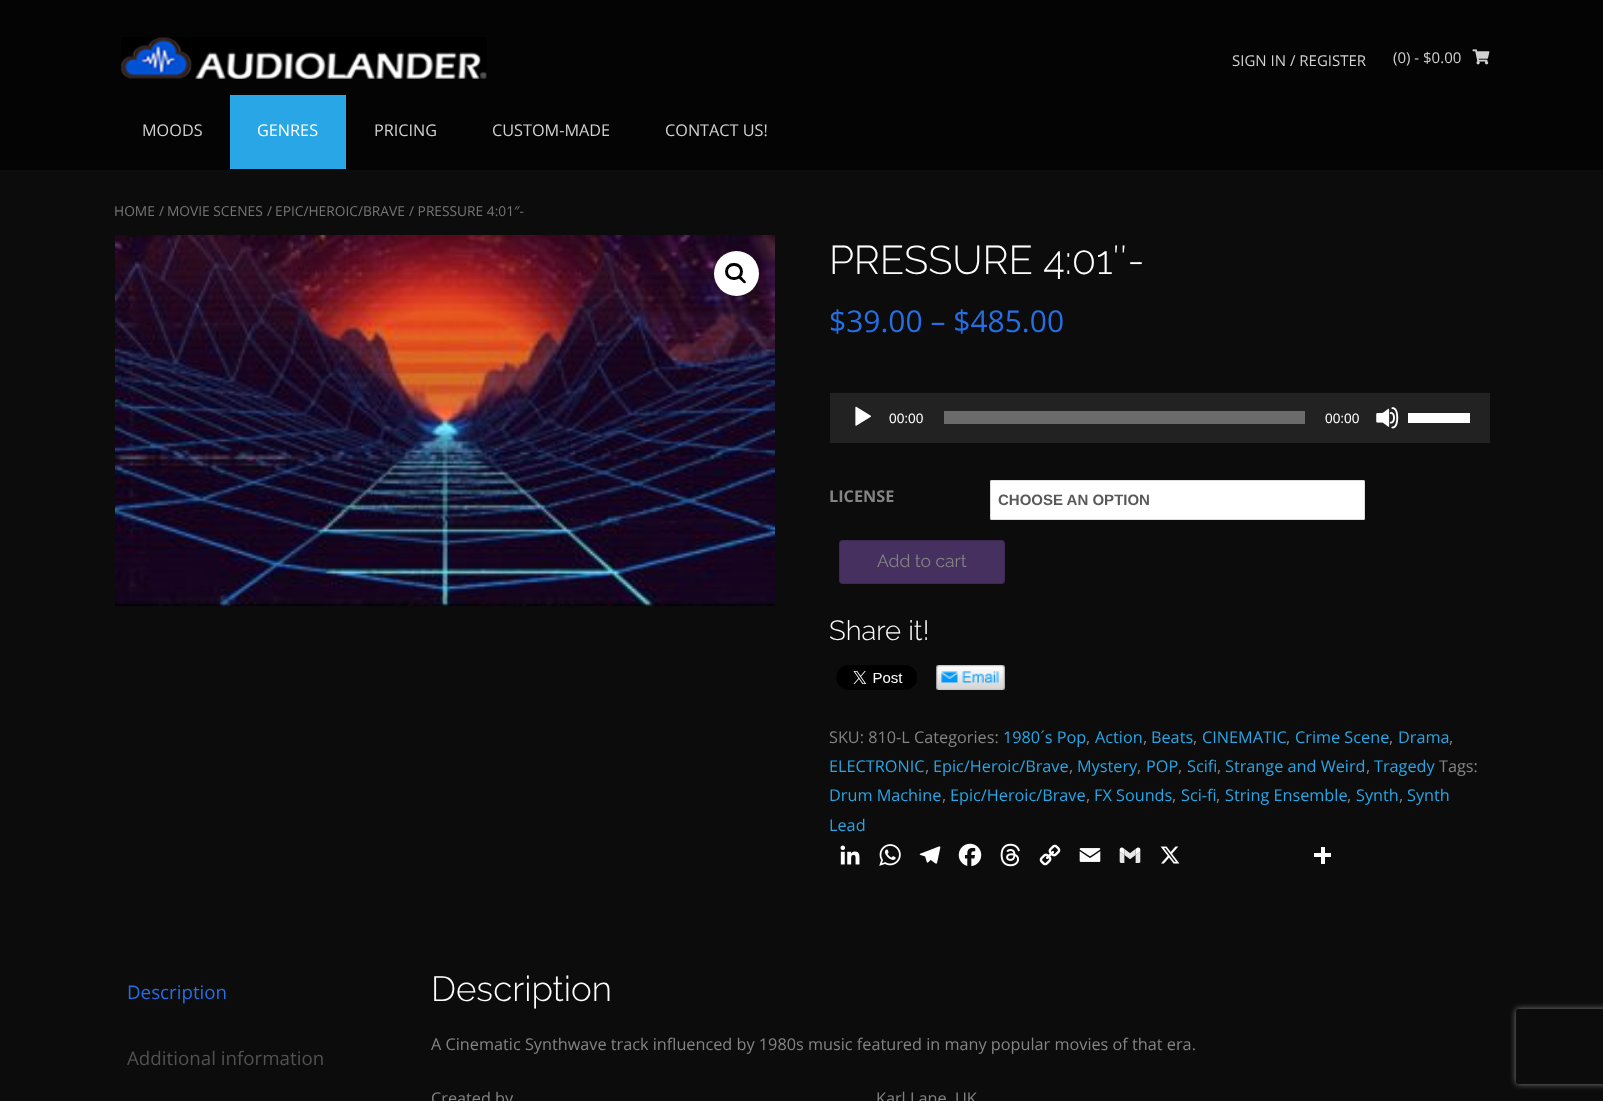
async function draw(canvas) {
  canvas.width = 1603
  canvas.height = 1101
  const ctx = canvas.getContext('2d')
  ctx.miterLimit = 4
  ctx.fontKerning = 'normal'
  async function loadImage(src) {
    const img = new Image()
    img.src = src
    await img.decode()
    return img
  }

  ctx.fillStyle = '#0c0c0c'
  ctx.fillRect(0, 0, 1603, 1101)
  ctx.fillStyle = '#040404'
  ctx.fillRect(0, 0, 1603, 170)
  ctx.drawImage(await loadImage('image0.png'), 121, 37, 366, 42)
  ctx.font = '15px Open Sans'
  ctx.fillStyle = '#d1d1d1'
  ctx.fillText('SIGN IN / REGISTER', 1232, 66)
  ctx.fillText('(0) - $0.00', 1393, 63)
  ctx.drawImage(await loadImage('image1.png'), 1472, 49, 18, 16)
  ctx.font = '16.25px Open Sans'
  ctx.fillText('MOODS', 142, 136)
  ctx.fillStyle = '#29a6e5'
  ctx.fillRect(230, 95, 116, 74)
  ctx.fillStyle = '#fff'
  ctx.fillText('GENRES', 257, 136)
  ctx.fillStyle = '#d1d1d1'
  ctx.fillText('PRICING', 374, 136)
  ctx.fillText('CUSTOM-MADE', 492, 136)
  ctx.fillText('CONTACT US!', 665, 136)
  ctx.font = '13.75px Open Sans'
  ctx.fillStyle = '#767676'
  ctx.fillText('HOME', 114, 216)
  ctx.fillText('/', 159, 216)
  ctx.fillText('MOVIE SCENES', 167, 216)
  ctx.fillText('/', 267, 216)
  ctx.fillText('EPIC/HEROIC/BRAVE', 275, 216)
  ctx.fillText('/ PRESSURE 4:01″-', 409, 216)
  ctx.drawImage(await loadImage('image2.png'), 115, 235, 660, 372)
  ctx.fillStyle = '#fff'
  ctx.beginPath()
  ctx.arc(736.5, 273.5, 22.5, 0, 2 * Math.PI)
  ctx.fill()
  ctx.beginPath()
  ctx.roundRect(726.5, 264.5, 15, 14, 7)
  ctx.strokeStyle = '#000'
  ctx.lineWidth = 3
  ctx.stroke()
  ctx.fillStyle = '#000'
  ctx.beginPath()
  ctx.moveTo(738.5, 276)
  ctx.bezierCurveTo(740, 274.5, 742, 277.5, 743, 278.5)
  ctx.bezierCurveTo(743.5, 279.5, 747, 281.5, 745.5, 283)
  ctx.bezierCurveTo(744, 284.5, 742, 281, 741, 280.5)
  ctx.bezierCurveTo(740, 279.5, 737, 277.5, 738.5, 276)
  ctx.closePath()
  ctx.fill()
  ctx.font = '300 40px Raleway'
  ctx.fillStyle = '#fff'
  ctx.fillText('PRESSURE 4:01″-', 829, 274)
  ctx.font = '30px Open Sans'
  ctx.fillStyle = '#266ee4'
  ctx.fillText('$39.00 – $485.00', 829, 332)
  ctx.fillStyle = '#222'
  ctx.fillRect(830, 393, 660, 50)
  ctx.drawImage(await loadImage('image3.png'), 855, 406, 16, 20)
  ctx.font = '13.75px Liberation Sans'
  ctx.fillStyle = '#fff'
  ctx.fillText('00:00', 889, 423)
  ctx.fillStyle = '#6b6b6b'
  ctx.fillRect(944, 411, 361, 13)
  ctx.fillStyle = '#fff'
  ctx.fillText('00:00', 1325, 423)
  ctx.drawImage(await loadImage('image4.png'), 1376, 407, 23, 22)
  ctx.fillRect(1408, 413, 62, 10)
  ctx.font = 'bold 16.25px Open Sans'
  ctx.fillStyle = '#848484'
  ctx.fillText('LICENSE', 829, 502)
  ctx.fillStyle = '#fff'
  ctx.beginPath()
  ctx.roundRect(990.5, 480.5, 374, 39, 0.5)
  ctx.fill()
  ctx.strokeStyle = '#dcdcdc'
  ctx.lineWidth = 1
  ctx.stroke()
  ctx.font = 'bold 15px Liberation Sans'
  ctx.fillStyle = '#595959'
  ctx.fillText('CHOOSE AN OPTION', 998, 505)
  ctx.fillStyle = '#463060'
  ctx.beginPath()
  ctx.roundRect(839, 540, 166, 44, 4)
  ctx.fill()
  ctx.beginPath()
  ctx.roundRect(839.5, 540.5, 165, 43, 3.5)
  ctx.strokeStyle = '#06060624'
  ctx.stroke()
  ctx.font = '17.5px Raleway'
  ctx.fillStyle = '#848484'
  ctx.fillText('Add to cart', 877, 567)
  ctx.font = '300 27.5px Raleway'
  ctx.fillStyle = '#fff'
  ctx.fillText('Share it!', 829, 640)
  ctx.drawImage(await loadImage('image5.png'), 836, 665, 81, 25)
  ctx.drawImage(await loadImage('image6.png'), 936, 665, 69, 25)
  ctx.font = '16.25px Open Sans'
  ctx.fillStyle = '#848484'
  ctx.fillText('SKU: 810-L Categories:', 829, 743)
  ctx.fillStyle = '#29a6e5'
  ctx.fillText('1980´s Pop', 1003, 743)
  ctx.fillStyle = '#848484'
  ctx.fillText(',', 1086, 743)
  ctx.fillStyle = '#29a6e5'
  ctx.fillText('Action', 1095, 743)
  ctx.fillStyle = '#848484'
  ctx.fillText(',', 1143, 743)
  ctx.fillStyle = '#29a6e5'
  ctx.fillText('Beats', 1151, 743)
  ctx.fillStyle = '#848484'
  ctx.fillText(',', 1193, 743)
  ctx.fillStyle = '#29a6e5'
  ctx.fillText('CINEMATIC', 1202, 743)
  ctx.fillStyle = '#848484'
  ctx.fillText(',', 1286, 743)
  ctx.fillStyle = '#29a6e5'
  ctx.fillText('Crime Scene', 1295, 743)
  ctx.fillStyle = '#848484'
  ctx.fillText(',', 1389, 743)
  ctx.fillStyle = '#29a6e5'
  ctx.fillText('Drama', 1398, 743)
  ctx.fillStyle = '#848484'
  ctx.fillText(',', 1449, 743)
  ctx.fillStyle = '#29a6e5'
  ctx.fillText('ELECTRONIC', 829, 772)
  ctx.fillStyle = '#848484'
  ctx.fillText(',', 925, 772)
  ctx.fillStyle = '#29a6e5'
  ctx.fillText('Epic/Heroic/Brave', 933, 772)
  ctx.fillStyle = '#848484'
  ctx.fillText(',', 1069, 772)
  ctx.fillStyle = '#29a6e5'
  ctx.fillText('Mystery', 1077, 772)
  ctx.fillStyle = '#848484'
  ctx.fillText(',', 1137, 772)
  ctx.fillStyle = '#29a6e5'
  ctx.fillText('POP', 1146, 772)
  ctx.fillStyle = '#848484'
  ctx.fillText(',', 1178, 772)
  ctx.fillStyle = '#29a6e5'
  ctx.fillText('Scifi', 1187, 772)
  ctx.fillStyle = '#848484'
  ctx.fillText(',', 1217, 772)
  ctx.fillStyle = '#29a6e5'
  ctx.fillText('Strange and Weird', 1225, 772)
  ctx.fillStyle = '#848484'
  ctx.fillText(',', 1366, 772)
  ctx.fillStyle = '#29a6e5'
  ctx.fillText('Tragedy', 1374, 772)
  ctx.fillStyle = '#848484'
  ctx.fillText('Tags:', 1439, 772)
  ctx.fillStyle = '#29a6e5'
  ctx.fillText('Drum Machine', 829, 801)
  ctx.fillStyle = '#848484'
  ctx.fillText(',', 942, 801)
  ctx.fillStyle = '#29a6e5'
  ctx.fillText('Epic/Heroic/Brave', 950, 801)
  ctx.fillStyle = '#848484'
  ctx.fillText(',', 1086, 801)
  ctx.fillStyle = '#29a6e5'
  ctx.fillText('FX Sounds', 1094, 801)
  ctx.fillStyle = '#848484'
  ctx.fillText(',', 1172, 801)
  ctx.fillStyle = '#29a6e5'
  ctx.fillText('Sci-fi', 1181, 801)
  ctx.fillStyle = '#848484'
  ctx.fillText(',', 1216, 801)
  ctx.fillStyle = '#29a6e5'
  ctx.fillText('String Ensemble', 1225, 801)
  ctx.fillStyle = '#848484'
  ctx.fillText(',', 1347, 801)
  ctx.fillStyle = '#29a6e5'
  ctx.fillText('Synth', 1356, 801)
  ctx.fillStyle = '#848484'
  ctx.fillText(',', 1399, 801)
  ctx.fillStyle = '#29a6e5'
  ctx.fillText('Synth', 1407, 801)
  ctx.fillText('Lead', 829, 831)
  ctx.drawImage(await loadImage('image7.png'), 840, 845, 20, 20)
  ctx.drawImage(await loadImage('image8.png'), 879, 844, 22, 22)
  ctx.drawImage(await loadImage('image9.png'), 919, 846, 22, 18)
  ctx.drawImage(await loadImage('image10.png'), 958, 843, 24, 24)
  ctx.drawImage(await loadImage('image11.png'), 1000, 843, 20, 24)
  ctx.drawImage(await loadImage('image12.png'), 1039, 844, 22, 22)
  ctx.drawImage(await loadImage('image13.png'), 1079, 848, 22, 14)
  ctx.drawImage(await loadImage('image14.png'), 1119, 847, 22, 16)
  ctx.drawImage(await loadImage('image15.png'), 1160, 846, 20, 18)
  ctx.fillStyle = '#fff'
  ctx.fillRect(1321, 847, 4, 17)
  ctx.fillRect(1314, 853, 17, 4)
  ctx.font = '18.75px Open Sans'
  ctx.fillStyle = '#266ee4'
  ctx.fillText('Description', 127, 999)
  ctx.fillStyle = '#515151'
  ctx.fillText('Additional information', 127, 1065)
  ctx.font = '300 35px Raleway'
  ctx.fillStyle = '#fff'
  ctx.fillText('Description', 431, 1001)
  ctx.font = '16.25px Open Sans'
  ctx.fillStyle = '#848484'
  ctx.fillText('A Cinematic Synthwave track influenced by 1980s music featured in many popular movies of that era.', 431, 1050)
  ctx.fillText('Created by', 431, 1104)
  ctx.fillText('Karl Lane, UK', 876, 1104)
  ctx.save()
  ctx.beginPath()
  ctx.moveTo(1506, 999)
  ctx.lineTo(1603, 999)
  ctx.lineTo(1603, 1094)
  ctx.lineTo(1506, 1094)
  ctx.closePath()
  ctx.moveTo(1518.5, 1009)
  ctx.lineTo(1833.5, 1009)
  ctx.bezierCurveTo(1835, 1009, 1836, 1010, 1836, 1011.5)
  ctx.lineTo(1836, 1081.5)
  ctx.bezierCurveTo(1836, 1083, 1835, 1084, 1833.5, 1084)
  ctx.lineTo(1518.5, 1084)
  ctx.bezierCurveTo(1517, 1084, 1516, 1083, 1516, 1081.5)
  ctx.lineTo(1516, 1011.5)
  ctx.bezierCurveTo(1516, 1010, 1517, 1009, 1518.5, 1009)
  ctx.closePath()
  ctx.clip('evenodd')
  ctx.fillStyle = '#808080'
  ctx.filter = 'blur(3px)'
  ctx.beginPath()
  ctx.roundRect(1516, 1009, 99, 75, 2.5)
  ctx.fill()
  ctx.filter = 'none'
  ctx.restore()
}

draw(document.querySelector('canvas'))
